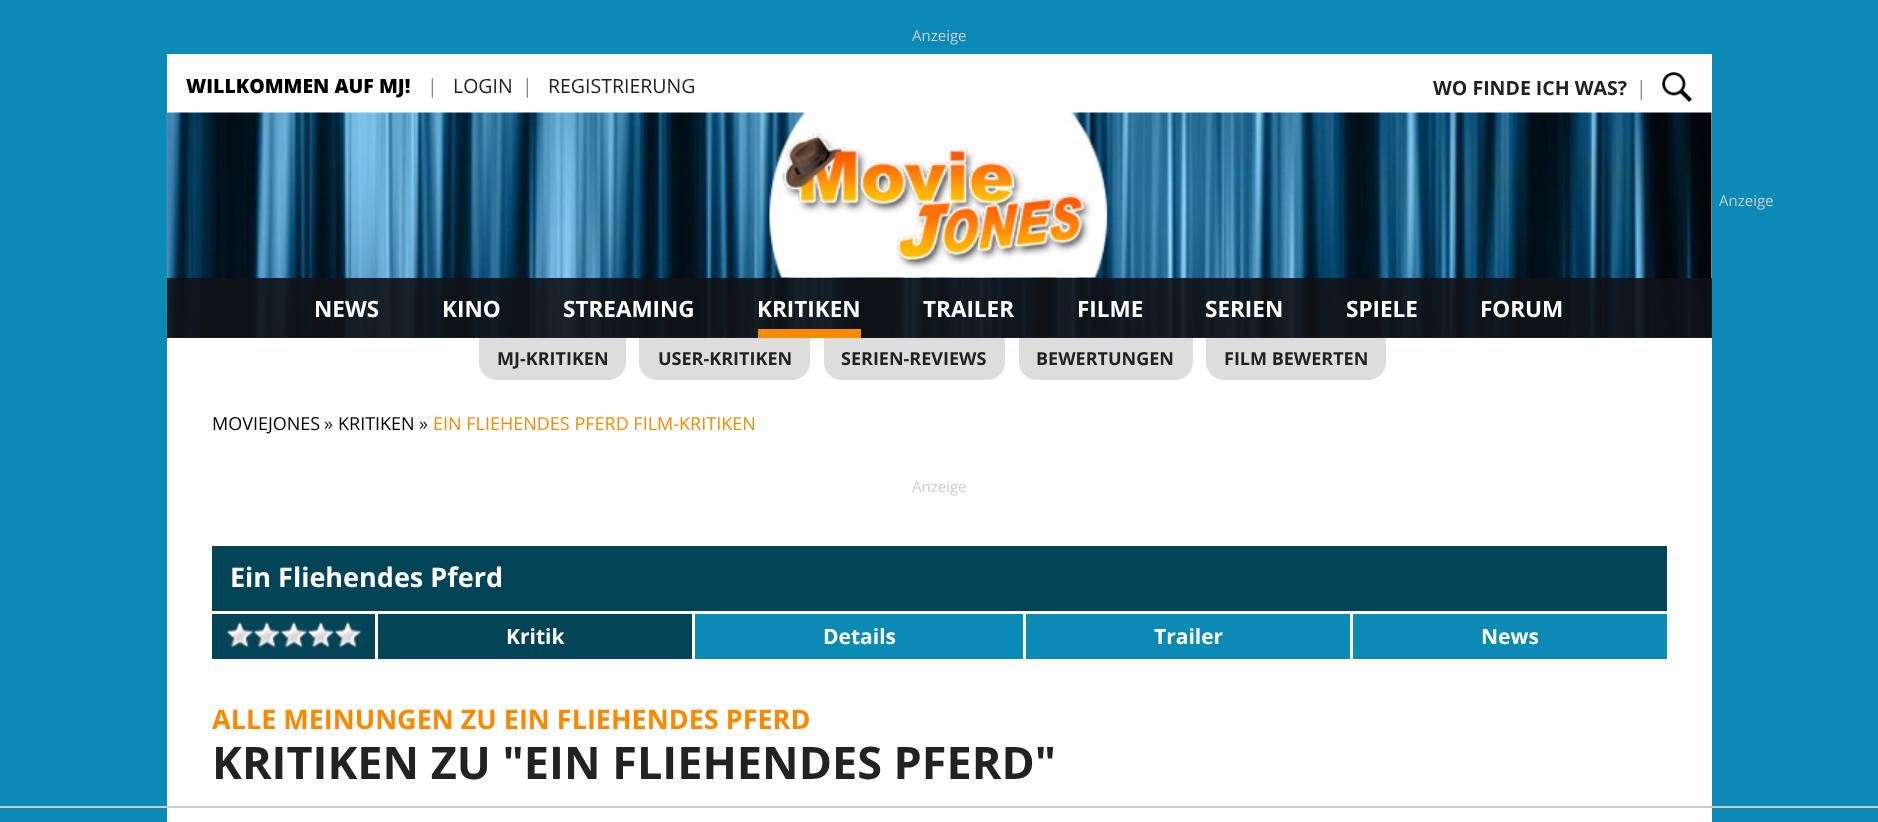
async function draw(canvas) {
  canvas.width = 1878
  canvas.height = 822
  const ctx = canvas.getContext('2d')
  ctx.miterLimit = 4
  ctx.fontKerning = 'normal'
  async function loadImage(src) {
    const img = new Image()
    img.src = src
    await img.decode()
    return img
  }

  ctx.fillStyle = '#0b8ab5'
  ctx.fillRect(0, 0, 1878, 822)
  ctx.font = '15px Open Sans'
  ctx.fillStyle = '#ccc'
  ctx.fillText('Anzeige', 912, 41)
  ctx.fillStyle = '#fff'
  ctx.fillRect(167, 54, 1545, 768)
  ctx.font = '800 19.5px Open Sans'
  ctx.fillStyle = '#000'
  ctx.fillText('WILLKOMMEN AUF MJ!', 186, 93)
  ctx.font = '19.5px Open Sans'
  ctx.fillStyle = '#888'
  ctx.fillText('|', 427, 93)
  ctx.fillStyle = '#222'
  ctx.fillText('LOGIN', 453, 93)
  ctx.fillStyle = '#888'
  ctx.fillText('|', 522, 93)
  ctx.fillStyle = '#222'
  ctx.fillText('REGISTRIERUNG', 548, 93)
  ctx.font = 'bold 19.5px Open Sans'
  ctx.fillText('WO FINDE ICH WAS?', 1433, 95)
  ctx.font = '19.5px Open Sans'
  ctx.fillStyle = '#888'
  ctx.fillText('|', 1636, 95)
  ctx.drawImage(await loadImage('image0.png'), 1662, 72, 30, 30)
  ctx.drawImage(await loadImage('image1.png'), 166, 112, 1546, 226)
  ctx.fillStyle = '#0f1216e6'
  ctx.fillRect(167, 278, 1545, 60)
  ctx.font = 'bold 22.5px Open Sans'
  ctx.fillStyle = '#fff'
  ctx.fillText('NEWS', 314, 317)
  ctx.fillText('KINO', 442, 317)
  ctx.fillText('STREAMING', 563, 317)
  ctx.fillText('KRITIKEN', 757, 317)
  ctx.fillStyle = '#fa8902'
  ctx.fillRect(758, 329, 103, 9)
  ctx.fillStyle = '#fff'
  ctx.fillText('TRAILER', 923, 317)
  ctx.fillText('FILME', 1077, 317)
  ctx.fillText('SERIEN', 1205, 317)
  ctx.fillText('SPIELE', 1346, 317)
  ctx.fillText('FORUM', 1480, 317)
  ctx.fillStyle = '#ddd'
  ctx.beginPath()
  ctx.roundRect(479, 338, 147, 42, [0, 0, 18, 18])
  ctx.fill()
  ctx.font = 'bold 18px Open Sans'
  ctx.fillStyle = '#222'
  ctx.fillText('MJ-KRITIKEN', 497, 365)
  ctx.fillStyle = '#ddd'
  ctx.beginPath()
  ctx.roundRect(639, 338, 171, 42, [0, 0, 18, 18])
  ctx.fill()
  ctx.fillStyle = '#222'
  ctx.fillText('USER-KRITIKEN', 658, 365)
  ctx.fillStyle = '#ddd'
  ctx.beginPath()
  ctx.roundRect(824, 338, 181, 42, [0, 0, 18, 18])
  ctx.fill()
  ctx.fillStyle = '#222'
  ctx.fillText('SERIEN-REVIEWS', 841, 365)
  ctx.fillStyle = '#ddd'
  ctx.beginPath()
  ctx.roundRect(1019, 338, 174, 42, [0, 0, 18, 18])
  ctx.fill()
  ctx.fillStyle = '#222'
  ctx.fillText('BEWERTUNGEN', 1036, 365)
  ctx.fillStyle = '#ddd'
  ctx.beginPath()
  ctx.roundRect(1206, 338, 180, 42, [0, 0, 18, 18])
  ctx.fill()
  ctx.fillStyle = '#222'
  ctx.fillText('FILM BEWERTEN', 1224, 365)
  ctx.font = '18px Open Sans'
  ctx.fillStyle = '#000'
  ctx.fillText('MOVIEJONES', 212, 430)
  ctx.fillStyle = '#222'
  ctx.fillText('»', 324, 430)
  ctx.fillStyle = '#000'
  ctx.fillText('KRITIKEN', 338, 430)
  ctx.fillStyle = '#222'
  ctx.fillText('»', 419, 430)
  ctx.fillStyle = '#fa8902'
  ctx.fillText('EIN FLIEHENDES PFERD FILM-KRITIKEN', 433, 430)
  ctx.font = '15px Open Sans'
  ctx.fillStyle = '#ccc'
  ctx.fillText('Anzeige', 912, 492)
  ctx.fillStyle = '#034459'
  ctx.fillRect(212, 546, 1455, 65)
  ctx.font = 'bold 27px Open Sans'
  ctx.fillStyle = '#fff'
  ctx.fillText('Ein Fliehendes Pferd', 230, 587)
  ctx.fillStyle = '#034459'
  ctx.fillRect(212, 614, 163, 45)
  ctx.drawImage(await loadImage('image2.png'), 226, 621, 136, 27)
  ctx.fillRect(378, 614, 314, 45)
  ctx.font = 'bold 21px Open Sans'
  ctx.fillStyle = '#fff'
  ctx.fillText('Kritik', 506, 644)
  ctx.fillStyle = '#0b8ab5'
  ctx.fillRect(695, 614, 328, 45)
  ctx.fillStyle = '#fff'
  ctx.fillText('Details', 823, 644)
  ctx.fillStyle = '#0b8ab5'
  ctx.fillRect(1026, 614, 324, 45)
  ctx.fillStyle = '#fff'
  ctx.fillText('Trailer', 1154, 644)
  ctx.fillStyle = '#0b8ab5'
  ctx.fillRect(1353, 614, 314, 45)
  ctx.fillStyle = '#fff'
  ctx.fillText('News', 1481, 644)
  ctx.font = 'bold 27px Open Sans'
  ctx.fillStyle = '#fa8902'
  ctx.fillText('ALLE MEINUNGEN ZU EIN FLIEHENDES PFERD', 212, 729)
  ctx.font = 'bold 45px Open Sans'
  ctx.fillStyle = '#222'
  ctx.fillText('KRITIKEN ZU "EIN FLIEHENDES PFERD"', 212, 779)
  ctx.font = '15px Open Sans'
  ctx.fillStyle = '#ccc'
  ctx.fillText('Anzeige', 1719, 206)
  ctx.fillRect(0, 806, 1878, 2)
}

draw(document.querySelector('canvas'))
